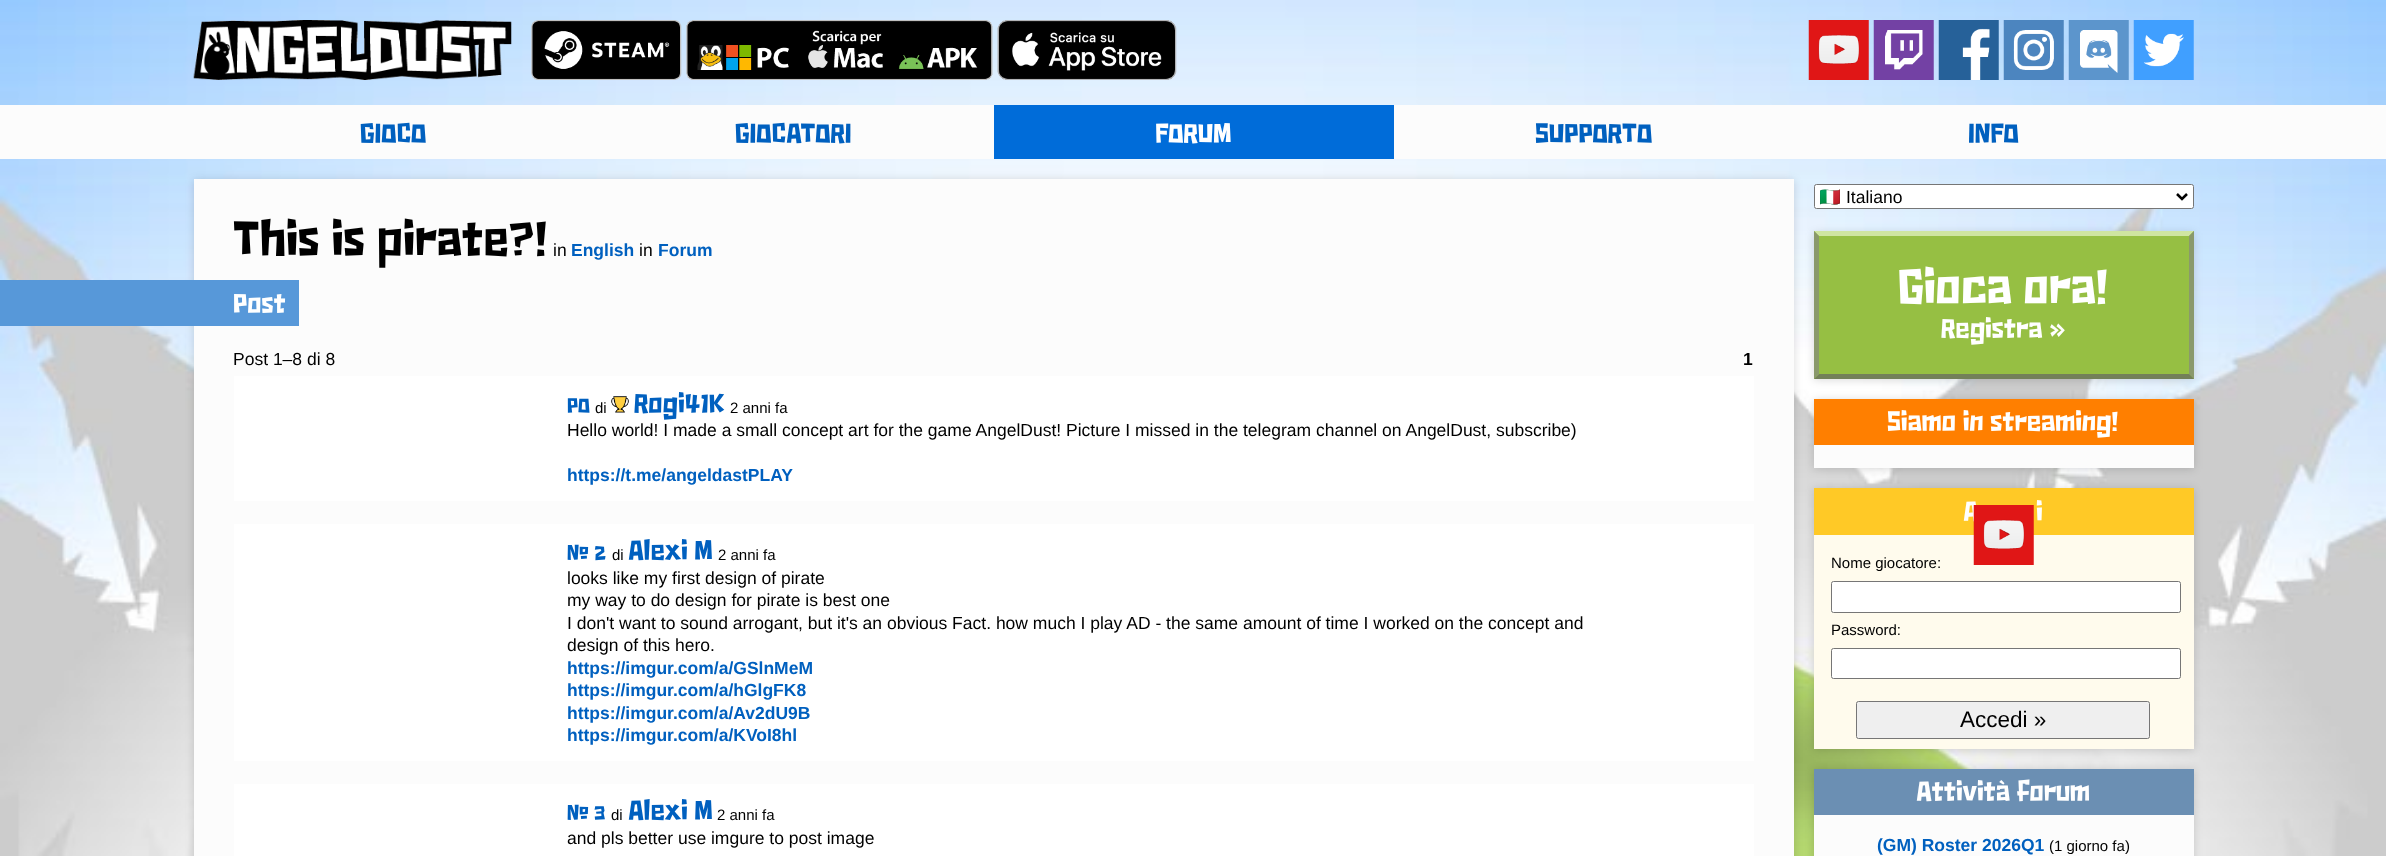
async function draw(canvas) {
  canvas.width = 2386
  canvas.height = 856
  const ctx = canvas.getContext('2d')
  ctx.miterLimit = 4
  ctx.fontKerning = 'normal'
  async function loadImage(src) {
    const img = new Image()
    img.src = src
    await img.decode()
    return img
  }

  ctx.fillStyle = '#fff'
  ctx.fillRect(0, 0, 2386, 856)
  ctx.drawImage(await loadImage('image0.png'), 0, 0, 2386, 856)
  ctx.drawImage(await loadImage('image1.png'), 193, 20, 319, 60)
  ctx.drawImage(await loadImage('image2.png'), 531, 20, 151, 60)
  ctx.drawImage(await loadImage('image3.png'), 686, 20, 307, 60)
  ctx.drawImage(await loadImage('image4.png'), 997, 20, 180, 60)
  ctx.drawImage(await loadImage('image5.png'), 1808, 20, 61, 60)
  ctx.drawImage(await loadImage('image6.png'), 1873, 20, 61, 60)
  ctx.drawImage(await loadImage('image7.png'), 1938, 20, 61, 60)
  ctx.drawImage(await loadImage('image8.png'), 2003, 20, 61, 60)
  ctx.drawImage(await loadImage('image9.png'), 2068, 20, 61, 60)
  ctx.drawImage(await loadImage('image10.png'), 2133, 20, 61, 60)
  ctx.fillStyle = '#fcfcfc'
  ctx.fillRect(0, 105, 2386, 54)
  ctx.font = '22.5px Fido'
  ctx.fillStyle = '#0060bf'
  ctx.fillText('GIOCO', 360, 143)
  ctx.fillText('GIOCATORI', 735, 143)
  ctx.fillStyle = '#006cd9'
  ctx.fillRect(994, 105, 400, 54)
  ctx.fillStyle = '#fff'
  ctx.fillText('FORUM', 1155, 143)
  ctx.fillStyle = '#0060bf'
  ctx.fillText('SUPPORTO', 1535, 143)
  ctx.fillText('INFO', 1968, 143)
  ctx.fillStyle = '#00000026'
  ctx.filter = 'blur(4px)'
  ctx.beginPath()
  ctx.rect(194, 180, 1600, 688)
  ctx.fill()
  ctx.filter = 'none'
  ctx.fillStyle = '#fcfcfc'
  ctx.fillRect(194, 179, 1600, 677)
  ctx.font = '40px Fido'
  ctx.fillStyle = '#000'
  ctx.fillText('This is pirate?!', 233, 256)
  ctx.font = '17.5px Liberation Sans'
  ctx.fillText('in', 553, 256)
  ctx.font = 'bold 17.5px Liberation Sans'
  ctx.fillStyle = '#0060bf'
  ctx.fillText('English', 571, 256)
  ctx.font = '17.5px Liberation Sans'
  ctx.fillStyle = '#000'
  ctx.fillText('in', 639, 256)
  ctx.font = 'bold 17.5px Liberation Sans'
  ctx.fillStyle = '#0060bf'
  ctx.fillText('Forum', 658, 256)
  ctx.fillStyle = '#5798d9'
  ctx.fillRect(0, 280, 299, 46)
  ctx.font = '22.5px Fido'
  ctx.fillStyle = '#fff'
  ctx.fillText('Post', 233, 313)
  ctx.font = '17.5px Liberation Sans'
  ctx.fillStyle = '#000'
  ctx.fillText('Post 1–8 di 8', 233, 365)
  ctx.font = 'bold 17.5px Liberation Sans'
  ctx.fillText('1', 1743, 365)
  ctx.fillStyle = '#fff'
  ctx.fillRect(234, 376, 1520, 125)
  ctx.font = '17.5px Fido'
  ctx.fillStyle = '#0060bf'
  ctx.fillText('PO', 567, 413)
  ctx.font = '15px Liberation Sans'
  ctx.fillStyle = '#000'
  ctx.fillText('di', 595, 413)
  ctx.drawImage(await loadImage('image11.png'), 611, 396, 18, 17)
  ctx.font = '22.5px Fido'
  ctx.fillStyle = '#0060bf'
  ctx.fillText('Rogi41K', 634, 413)
  ctx.font = '15px Liberation Sans'
  ctx.fillStyle = '#000'
  ctx.fillText('2 anni fa', 730, 413)
  ctx.font = '17.5px Liberation Sans'
  ctx.fillText('Hello world! I made a small concept art for the game AngelDust! Picture I missed in the telegram channel on AngelDust, subscribe)', 567, 436)
  ctx.font = 'bold 17.5px Liberation Sans'
  ctx.fillStyle = '#0060bf'
  ctx.fillText('https://t.me/angeldastPLAY', 567, 481)
  ctx.fillStyle = '#fff'
  ctx.fillRect(234, 524, 1520, 237)
  ctx.font = '17.5px Fido'
  ctx.fillStyle = '#0060bf'
  ctx.fillText('# 2', 567, 560)
  ctx.font = '15px Liberation Sans'
  ctx.fillStyle = '#000'
  ctx.fillText('di', 612, 560)
  ctx.font = '22.5px Fido'
  ctx.fillStyle = '#0060bf'
  ctx.fillText('Alexi M', 628, 560)
  ctx.font = '15px Liberation Sans'
  ctx.fillStyle = '#000'
  ctx.fillText('2 anni fa', 718, 560)
  ctx.font = '17.5px Liberation Sans'
  ctx.fillText('looks like my first design of pirate', 567, 584)
  ctx.fillText('my way to do design for pirate is best one', 567, 606)
  ctx.fillText('I don\'t want to sound arrogant, but it\'s an obvious Fact. how much I play AD - the same amount of time I worked on the concept and', 567, 629)
  ctx.fillText('design of this hero.', 567, 651)
  ctx.font = 'bold 17.5px Liberation Sans'
  ctx.fillStyle = '#0060bf'
  ctx.fillText('https://imgur.com/a/GSlnMeM', 567, 674)
  ctx.fillText('https://imgur.com/a/hGlgFK8', 567, 696)
  ctx.fillText('https://imgur.com/a/Av2dU9B', 567, 719)
  ctx.fillText('https://imgur.com/a/KVoI8hl', 567, 741)
  ctx.fillStyle = '#fff'
  ctx.fillRect(234, 784, 1520, 72)
  ctx.font = '17.5px Fido'
  ctx.fillStyle = '#0060bf'
  ctx.fillText('# 3', 567, 820)
  ctx.font = '15px Liberation Sans'
  ctx.fillStyle = '#000'
  ctx.fillText('di', 611, 820)
  ctx.font = '22.5px Fido'
  ctx.fillStyle = '#0060bf'
  ctx.fillText('Alexi M', 628, 820)
  ctx.font = '15px Liberation Sans'
  ctx.fillStyle = '#000'
  ctx.fillText('2 anni fa', 717, 820)
  ctx.font = '17.5px Liberation Sans'
  ctx.fillText('and pls better use imgure to post image', 567, 844)
  ctx.fillStyle = '#fff'
  ctx.beginPath()
  ctx.roundRect(1814.5, 184.5, 379, 24, 2)
  ctx.fill()
  ctx.strokeStyle = '#767676'
  ctx.stroke()
  ctx.beginPath()
  ctx.moveTo(2177, 194)
  ctx.lineTo(2182, 199)
  ctx.lineTo(2187, 194)
  ctx.strokeStyle = '#000'
  ctx.lineWidth = 2.5
  ctx.stroke()
  ctx.save()
  ctx.beginPath()
  ctx.rect(1820, 185, 353, 23)
  ctx.clip()
  ctx.font = '17.5px Noto Color Emoji'
  ctx.fillStyle = '#000'
  ctx.fillText('🇮🇹', 1819, 203)
  ctx.restore()
  ctx.fillStyle = '#000'
  ctx.fillText('Italiano', 1846, 203)
  ctx.fillStyle = '#00000026'
  ctx.filter = 'blur(4px)'
  ctx.beginPath()
  ctx.rect(1814, 233, 380, 147)
  ctx.fill()
  ctx.filter = 'none'
  ctx.fillStyle = '#96bf43'
  ctx.fillRect(1814, 231, 380, 148)
  ctx.fillStyle = '#cfe5a1'
  ctx.beginPath()
  ctx.moveTo(1814, 231)
  ctx.lineTo(2194, 231)
  ctx.lineTo(2189, 236)
  ctx.lineTo(1819, 236)
  ctx.closePath()
  ctx.fill()
  ctx.fillStyle = '#8a996b'
  ctx.beginPath()
  ctx.moveTo(2194, 231)
  ctx.lineTo(2194, 379)
  ctx.lineTo(2189, 374)
  ctx.lineTo(2189, 236)
  ctx.closePath()
  ctx.fill()
  ctx.fillStyle = '#738059'
  ctx.beginPath()
  ctx.moveTo(2194, 379)
  ctx.lineTo(1814, 379)
  ctx.lineTo(1819, 374)
  ctx.lineTo(2189, 374)
  ctx.closePath()
  ctx.fill()
  ctx.fillStyle = '#8a996b'
  ctx.beginPath()
  ctx.moveTo(1814, 379)
  ctx.lineTo(1814, 231)
  ctx.lineTo(1819, 236)
  ctx.lineTo(1819, 374)
  ctx.closePath()
  ctx.fill()
  ctx.font = '40px Fido'
  ctx.fillStyle = '#fff'
  ctx.fillText('Gioca ora!', 1898, 304)
  ctx.font = '22.5px Fido'
  ctx.fillText('Registra »', 1941, 338)
  ctx.fillStyle = '#00000026'
  ctx.filter = 'blur(4px)'
  ctx.beginPath()
  ctx.rect(1814, 400, 380, 69)
  ctx.fill()
  ctx.filter = 'none'
  ctx.fillStyle = '#fcfcfc'
  ctx.fillRect(1814, 445, 380, 23)
  ctx.fillStyle = '#ff7f00'
  ctx.fillRect(1814, 399, 380, 46)
  ctx.fillStyle = '#fff'
  ctx.fillText('Siamo in streaming!', 1887, 431)
  ctx.fillStyle = '#00000026'
  ctx.filter = 'blur(4px)'
  ctx.beginPath()
  ctx.rect(1814, 489, 380, 261)
  ctx.fill()
  ctx.filter = 'none'
  ctx.fillStyle = '#fffbed'
  ctx.fillRect(1814, 535, 380, 214)
  ctx.fillStyle = '#ffc926'
  ctx.fillRect(1814, 488, 380, 47)
  ctx.fillStyle = '#fff'
  ctx.fillText('A', 1963, 521)
  ctx.drawImage(await loadImage('image12.png'), 1973, 505, 61, 60)
  ctx.fillText('i', 2036, 521)
  ctx.font = '15px Liberation Sans'
  ctx.fillStyle = '#000'
  ctx.fillText('Nome giocatore:', 1831, 568)
  ctx.fillStyle = '#fff'
  ctx.beginPath()
  ctx.roundRect(1831.5, 581.5, 349, 31, 2)
  ctx.fill()
  ctx.strokeStyle = '#767676'
  ctx.lineWidth = 1
  ctx.stroke()
  ctx.fillStyle = '#000'
  ctx.fillText('Password:', 1831, 635)
  ctx.fillStyle = '#fff'
  ctx.beginPath()
  ctx.roundRect(1831.5, 648.5, 349, 30, 2)
  ctx.fill()
  ctx.stroke()
  ctx.fillStyle = '#efefef'
  ctx.beginPath()
  ctx.roundRect(1856.5, 701.5, 293, 37, 2)
  ctx.fill()
  ctx.stroke()
  ctx.font = '22.5px Liberation Sans'
  ctx.fillStyle = '#000'
  ctx.fillText('Accedi »', 1960, 727)
  ctx.fillStyle = '#00000026'
  ctx.filter = 'blur(4px)'
  ctx.beginPath()
  ctx.rect(1814, 770, 380, 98)
  ctx.fill()
  ctx.filter = 'none'
  ctx.fillStyle = '#fcfcfc'
  ctx.fillRect(1814, 815, 380, 41)
  ctx.fillStyle = '#6b8fb3'
  ctx.fillRect(1814, 769, 380, 46)
  ctx.font = '22.5px Fido'
  ctx.fillStyle = '#fff'
  ctx.fillText('Attività forum', 1916, 801)
  ctx.font = 'bold 17.5px Liberation Sans'
  ctx.fillStyle = '#0060bf'
  ctx.fillText('(GM) Roster 2026Q1', 1877, 851)
  ctx.font = '15px Liberation Sans'
  ctx.fillStyle = '#000'
  ctx.fillText('(1 giorno fa)', 2049, 851)
}

draw(document.querySelector('canvas'))
